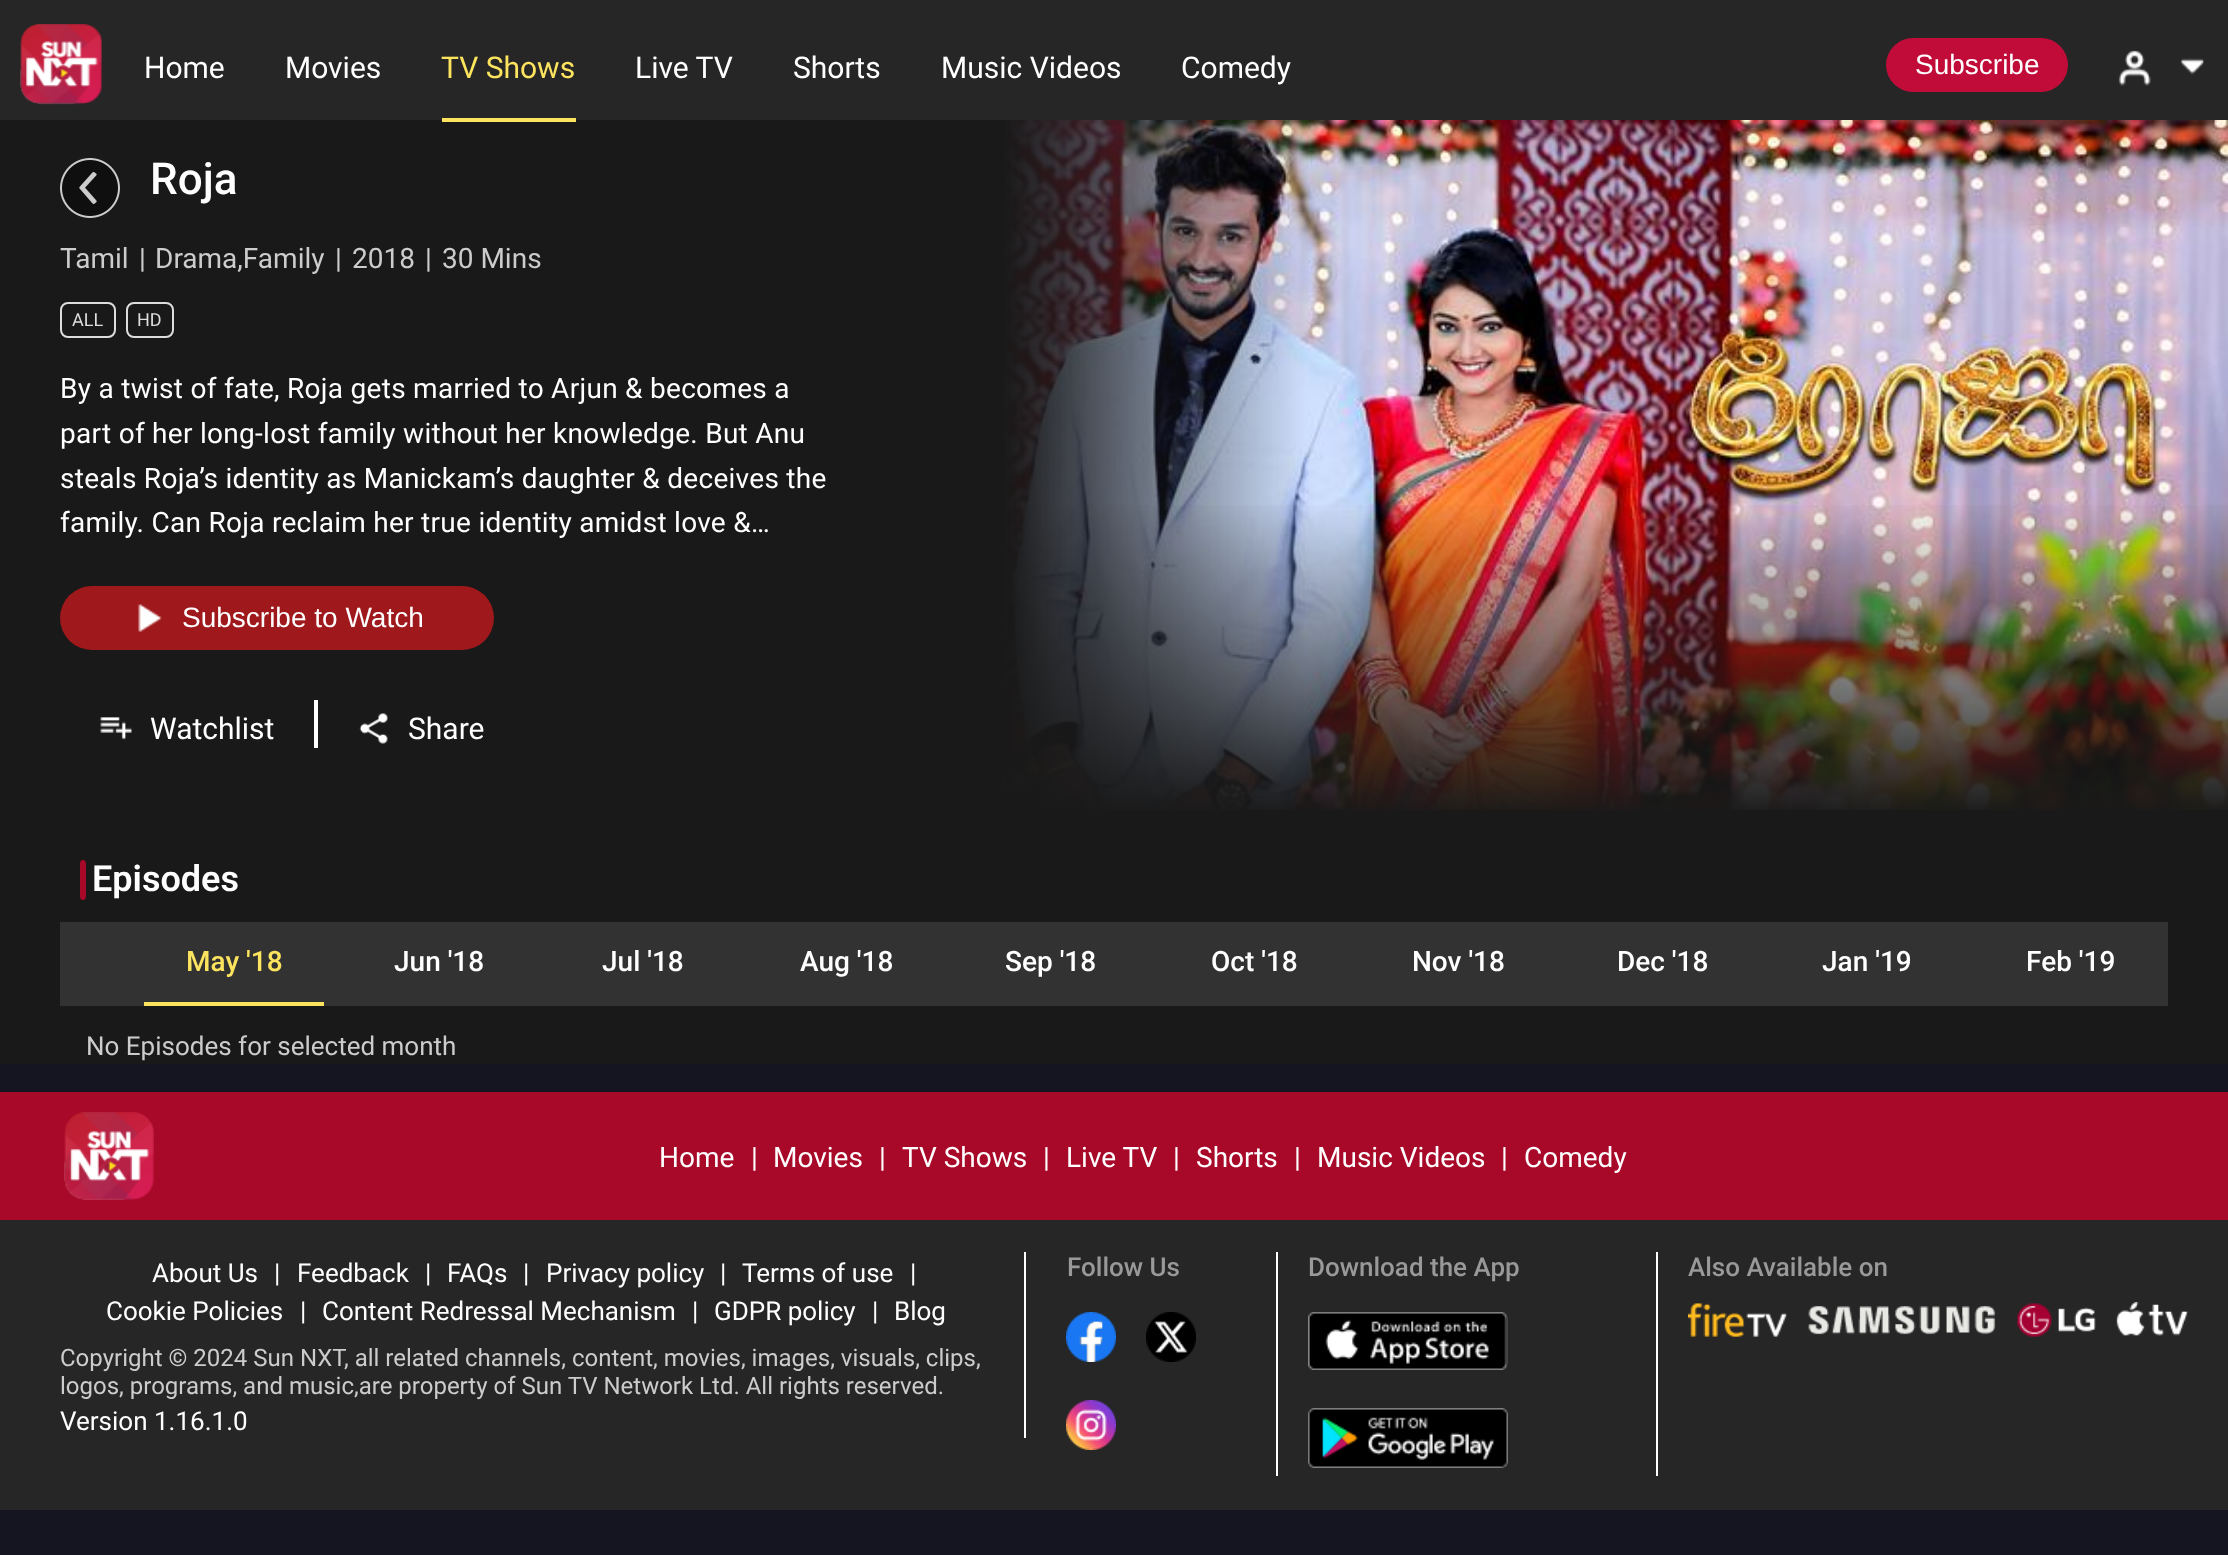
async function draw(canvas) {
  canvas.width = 2228
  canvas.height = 1555
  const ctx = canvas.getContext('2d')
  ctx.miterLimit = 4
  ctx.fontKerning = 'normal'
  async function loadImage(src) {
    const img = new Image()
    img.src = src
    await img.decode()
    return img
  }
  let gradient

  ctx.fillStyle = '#191919'
  ctx.fillRect(0, 0, 2228, 1555)
  ctx.fillStyle = '#262626'
  ctx.fillRect(0, 0, 2228, 120)
  ctx.drawImage(await loadImage('image0.png'), 20, 24, 82, 81)
  ctx.font = '30px Roboto'
  ctx.fillStyle = '#fff'
  ctx.fillText('Home', 144, 78)
  ctx.fillText('Movies', 285, 78)
  ctx.fillStyle = '#fce45e'
  ctx.fillRect(442, 118, 134, 4)
  ctx.fillText('TV Shows', 441, 78)
  ctx.fillStyle = '#fff'
  ctx.fillText('Live TV', 635, 78)
  ctx.fillText('Shorts', 793, 78)
  ctx.fillText('Music Videos', 941, 78)
  ctx.fillText('Comedy', 1181, 78)
  ctx.fillStyle = '#c10c3a'
  ctx.beginPath()
  ctx.roundRect(1886, 38, 182, 54, 27)
  ctx.fill()
  ctx.font = '28px Liberation Sans'
  ctx.fillStyle = '#fff'
  ctx.fillText('Subscribe', 1915, 74)
  ctx.drawImage(await loadImage('image1.png'), 2118, 50, 86, 36)
  ctx.drawImage(await loadImage('image2.png'), 60, 158, 60, 60)
  ctx.font = '500 44px Roboto'
  ctx.fillText('Roja', 150, 194)
  ctx.font = '28px Roboto'
  ctx.fillStyle = '#ccc'
  ctx.fillText('Tamil', 60, 268)
  ctx.fillText('|', 139, 268)
  ctx.fillText('Drama,Family', 155, 268)
  ctx.fillText('|', 335, 268)
  ctx.fillText('2018', 352, 268)
  ctx.fillText('|', 425, 268)
  ctx.fillText('30 Mins', 442, 268)
  ctx.beginPath()
  ctx.roundRect(61, 303, 54, 34, 7)
  ctx.strokeStyle = '#ddd'
  ctx.lineWidth = 2
  ctx.stroke()
  ctx.font = '18px Roboto'
  ctx.fillStyle = '#ddd'
  ctx.fillText('ALL', 72, 326)
  ctx.beginPath()
  ctx.roundRect(127, 303, 46, 34, 7)
  ctx.stroke()
  ctx.fillText('HD', 137, 326)
  ctx.letterSpacing = '0.28px'
  ctx.font = '28px Roboto'
  ctx.fillStyle = '#fff'
  ctx.fillText('By a twist of fate, Roja gets married to Arjun & becomes a', 60, 398)
  ctx.fillText('part of her long-lost family without her knowledge. But Anu', 60, 443)
  ctx.fillText('steals Roja’s identity as Manickam’s daughter & deceives the', 60, 488)
  ctx.fillText('family. Can Roja reclaim her true identity amidst love &…', 60, 532)
  ctx.fillStyle = '#9f181b'
  ctx.beginPath()
  ctx.roundRect(60, 586, 434, 64, 32)
  ctx.fill()
  ctx.drawImage(await loadImage('image3.png'), 138, 604, 24, 28)
  ctx.letterSpacing = '0px'
  ctx.font = '28px Liberation Sans'
  ctx.fillStyle = '#fff'
  ctx.fillText('Subscribe to Watch', 182, 627)
  ctx.fillRect(314, 700, 4, 48)
  ctx.drawImage(await loadImage('image4.png'), 100, 717, 32, 23)
  ctx.font = '30px Roboto'
  ctx.fillText('Watchlist', 150, 739)
  ctx.drawImage(await loadImage('image5.png'), 359, 713, 29, 31)
  ctx.fillText('Share', 408, 739)
  ctx.drawImage(await loadImage('image6.png'), 1002, 120, 1226, 690)
  gradient = ctx.createLinearGradient(1615, 498, 1615, 818)
  gradient.addColorStop(0, '#19191900')
  gradient.addColorStop(1, '#191919')
  ctx.fillStyle = gradient
  ctx.fillRect(1005, 505, 1223, 305)
  ctx.drawImage(await loadImage('image7.png'), 80, 860, 6, 40)
  ctx.font = '600 36px Roboto'
  ctx.fillStyle = '#fff'
  ctx.fillText('Episodes', 92, 891)
  ctx.fillStyle = '#323232'
  ctx.fillRect(60, 922, 2108, 84)
  ctx.fillStyle = '#fce45e'
  ctx.fillRect(144, 1002, 180, 4)
  ctx.font = '500 28px Roboto'
  ctx.fillText('May \'18', 186, 971)
  ctx.fillStyle = '#fff'
  ctx.fillText('Jun \'18', 394, 971)
  ctx.fillText('Jul \'18', 602, 971)
  ctx.fillText('Aug \'18', 800, 971)
  ctx.fillText('Sep \'18', 1005, 971)
  ctx.fillText('Oct \'18', 1211, 971)
  ctx.fillText('Nov \'18', 1412, 971)
  ctx.fillText('Dec \'18', 1617, 971)
  ctx.fillText('Jan \'19', 1822, 971)
  ctx.fillText('Feb \'19', 2026, 971)
  ctx.font = '26px Roboto'
  ctx.fillStyle = '#ccc'
  ctx.fillText('No Episodes for selected month', 86, 1055)
  ctx.fillStyle = '#151522'
  ctx.fillRect(0, 1064, 2228, 491)
  ctx.fillStyle = '#a80929'
  ctx.fillRect(0, 1092, 2228, 128)
  ctx.drawImage(await loadImage('image8.png'), 64, 1112, 90, 88)
  ctx.font = '28px Roboto'
  ctx.fillStyle = '#fff'
  ctx.fillText('Home', 659, 1167)
  ctx.fillText('|', 751, 1167)
  ctx.fillText('Movies', 773, 1167)
  ctx.fillText('|', 879, 1167)
  ctx.fillText('TV Shows', 902, 1167)
  ctx.fillText('|', 1043, 1167)
  ctx.fillText('Live TV', 1066, 1167)
  ctx.fillText('|', 1173, 1167)
  ctx.fillText('Shorts', 1196, 1167)
  ctx.fillText('|', 1294, 1167)
  ctx.fillText('Music Videos', 1317, 1167)
  ctx.fillText('|', 1501, 1167)
  ctx.fillText('Comedy', 1524, 1167)
  ctx.fillStyle = '#262626'
  ctx.fillRect(0, 1220, 2228, 290)
  ctx.fillStyle = '#fff'
  ctx.fillRect(1024, 1252, 2, 186)
  ctx.font = '26px Roboto'
  ctx.fillText('About Us', 152, 1282)
  ctx.fillText('|', 274, 1282)
  ctx.fillText('Feedback', 297, 1282)
  ctx.fillText('|', 425, 1282)
  ctx.fillText('FAQs', 447, 1282)
  ctx.fillText('|', 523, 1282)
  ctx.fillText('Privacy policy', 546, 1282)
  ctx.fillText('|', 720, 1282)
  ctx.fillText('Terms of use', 742, 1282)
  ctx.fillText('|', 910, 1282)
  ctx.fillText('Cookie Policies', 106, 1320)
  ctx.fillText('|', 300, 1320)
  ctx.fillText('Content Redressal Mechanism', 322, 1320)
  ctx.fillText('|', 692, 1320)
  ctx.fillText('GDPR policy', 714, 1320)
  ctx.fillText('|', 872, 1320)
  ctx.fillText('Blog', 894, 1320)
  ctx.font = '24px Roboto'
  ctx.fillStyle = '#ccc'
  ctx.fillText('Copyright © 2024 Sun NXT, all related channels, content, movies, images, visuals, clips,', 60, 1366)
  ctx.fillText('logos, programs, and music,are property of Sun TV Network Ltd. All rights reserved.', 60, 1394)
  ctx.font = '26px Roboto'
  ctx.fillStyle = '#fff'
  ctx.fillText('Version 1.16.1.0', 60, 1430)
  ctx.fillRect(1276, 1252, 2, 224)
  ctx.font = '500 26px Roboto'
  ctx.fillStyle = '#999'
  ctx.fillText('Follow Us', 1067, 1276)
  ctx.drawImage(await loadImage('image9.png'), 1066, 1312, 50, 50)
  ctx.drawImage(await loadImage('image10.png'), 1146, 1312, 50, 50)
  ctx.drawImage(await loadImage('image11.png'), 1066, 1400, 50, 50)
  ctx.fillStyle = '#fff'
  ctx.fillRect(1656, 1252, 2, 224)
  ctx.fillStyle = '#999'
  ctx.fillText('Download the App', 1308, 1276)
  ctx.drawImage(await loadImage('image12.png'), 1308, 1312, 200, 58)
  ctx.drawImage(await loadImage('image13.png'), 1308, 1408, 200, 60)
  ctx.fillText('Also Available on', 1688, 1276)
  ctx.drawImage(await loadImage('image14.png'), 1688, 1302, 500, 35)
}

draw(document.querySelector('canvas'))
